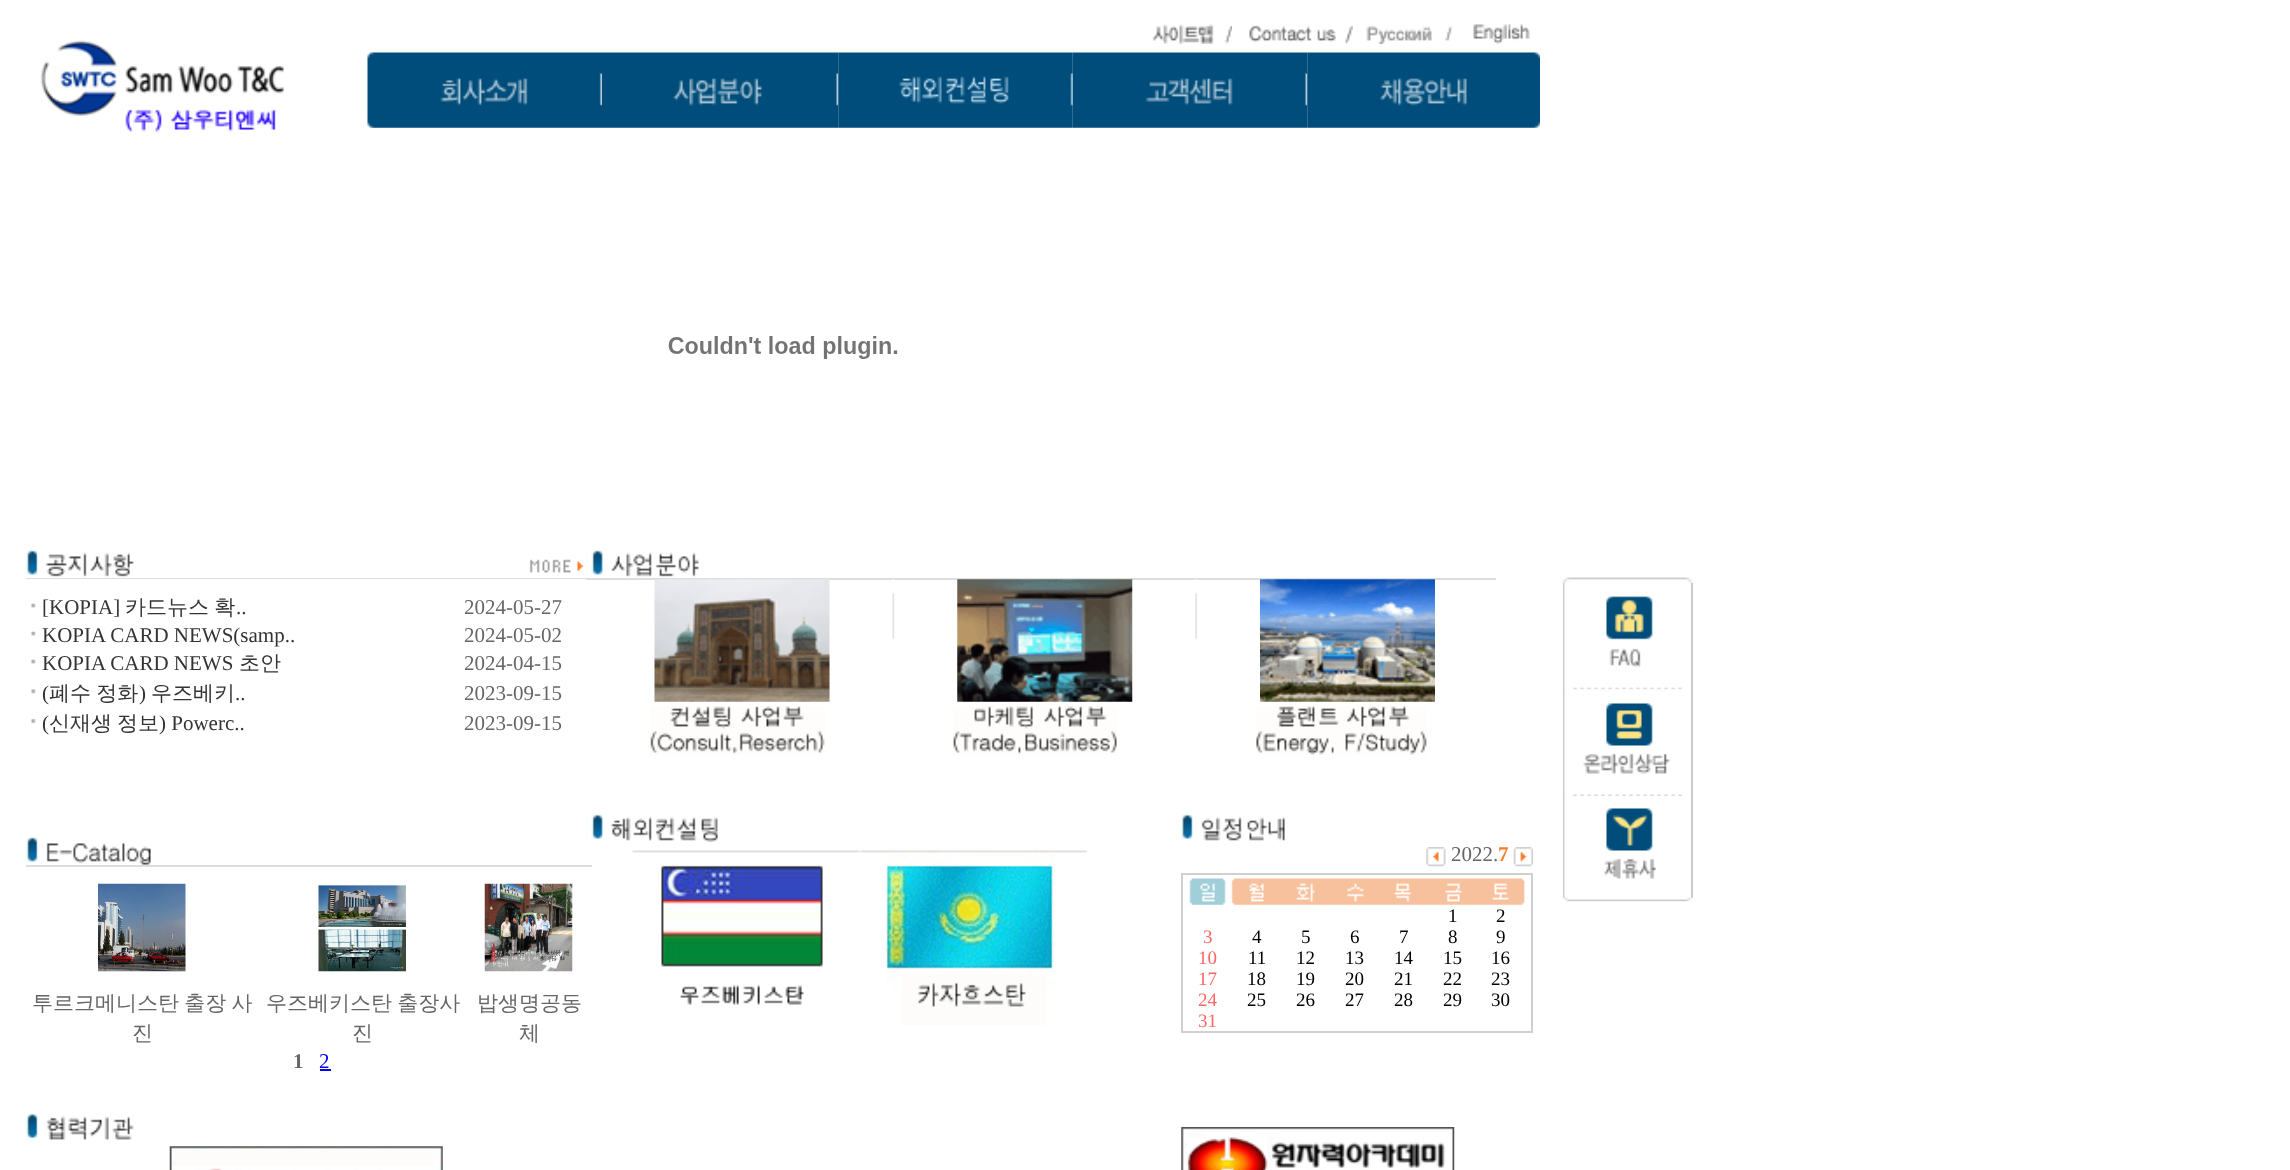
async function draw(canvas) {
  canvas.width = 2290
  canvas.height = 1170
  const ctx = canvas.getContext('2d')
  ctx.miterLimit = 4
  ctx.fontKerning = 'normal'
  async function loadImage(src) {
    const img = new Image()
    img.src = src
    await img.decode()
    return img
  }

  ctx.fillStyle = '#fff'
  ctx.fillRect(0, 0, 2290, 1170)
  ctx.drawImage(await loadImage('image0.png'), 1152, 24, 80, 20)
  ctx.drawImage(await loadImage('image1.png'), 1249, 25, 104, 19)
  ctx.drawImage(await loadImage('image2.png'), 1366, 26, 87, 18)
  ctx.drawImage(await loadImage('image3.png'), 1473, 24, 57, 20)
  ctx.drawImage(await loadImage('image4.png'), 40, 40, 244, 92)
  ctx.drawImage(await loadImage('image5.png'), 367, 52, 235, 76)
  ctx.drawImage(await loadImage('image6.png'), 602, 52, 237, 76)
  ctx.drawImage(await loadImage('image7.png'), 838, 52, 235, 76)
  ctx.drawImage(await loadImage('image8.png'), 1072, 52, 236, 76)
  ctx.drawImage(await loadImage('image9.png'), 1307, 52, 233, 76)
  ctx.drawImage(await loadImage('image10.png'), 668, 336, 230, 23)
  ctx.drawImage(await loadImage('image11.png'), 26, 549, 108, 28)
  ctx.drawImage(await loadImage('image12.png'), 529, 559, 55, 14)
  ctx.fillStyle = '#ddd'
  ctx.fillRect(26, 578, 1470, 2)
  ctx.fillStyle = '#fff'
  ctx.fillRect(26, 579, 560, 1)
  ctx.drawImage(await loadImage('image13.png'), 31, 603, 5, 5)
  ctx.font = '21px Liberation Serif'
  ctx.fillStyle = '#333'
  ctx.fillText('[KOPIA]', 42, 614)
  ctx.wordSpacing = '-1px'
  ctx.font = '500 21px WenQuanYi Zen Hei'
  ctx.fillText('카드뉴스 확', 125, 614)
  ctx.wordSpacing = '0px'
  ctx.font = '21px Liberation Serif'
  ctx.fillText('..', 236, 614)
  ctx.fillStyle = '#666'
  ctx.fillText('2024-05-27', 464, 614)
  ctx.drawImage(await loadImage('image13.png'), 31, 631, 5, 5)
  ctx.fillStyle = '#333'
  ctx.fillText('KOPIA CARD NEWS(samp..', 42, 642)
  ctx.fillStyle = '#666'
  ctx.fillText('2024-05-02', 464, 642)
  ctx.drawImage(await loadImage('image13.png'), 31, 659, 5, 5)
  ctx.fillStyle = '#333'
  ctx.fillText('KOPIA CARD NEWS', 42, 670)
  ctx.font = '500 21px WenQuanYi Zen Hei'
  ctx.fillText('초안', 239, 670)
  ctx.font = '21px Liberation Serif'
  ctx.fillStyle = '#666'
  ctx.fillText('2024-04-15', 464, 670)
  ctx.drawImage(await loadImage('image14.png'), 31, 689, 5, 5)
  ctx.fillStyle = '#333'
  ctx.fillText('(', 42, 700)
  ctx.wordSpacing = '-1px'
  ctx.font = '500 21px WenQuanYi Zen Hei'
  ctx.fillText('폐수 정화', 49, 700)
  ctx.wordSpacing = '0px'
  ctx.font = '21px Liberation Serif'
  ctx.fillText(')', 139, 700)
  ctx.font = '500 21px WenQuanYi Zen Hei'
  ctx.fillText('우즈베키', 151, 700)
  ctx.font = '21px Liberation Serif'
  ctx.fillText('..', 235, 700)
  ctx.fillStyle = '#666'
  ctx.fillText('2023-09-15', 464, 700)
  ctx.drawImage(await loadImage('image15.png'), 31, 719, 5, 5)
  ctx.fillStyle = '#333'
  ctx.fillText('(', 42, 730)
  ctx.font = '500 21px WenQuanYi Zen Hei'
  ctx.fillText('신재생', 49, 730)
  ctx.fillText('정보', 117, 730)
  ctx.font = '21px Liberation Serif'
  ctx.fillText(') Powerc..', 159, 730)
  ctx.fillStyle = '#666'
  ctx.fillText('2023-09-15', 464, 730)
  ctx.drawImage(await loadImage('image16.png'), 26, 836, 125, 29)
  ctx.fillStyle = '#ddd'
  ctx.fillRect(26, 865, 566, 2)
  ctx.drawImage(await loadImage('image17.png'), 98, 883, 88, 89)
  ctx.wordSpacing = '-1px'
  ctx.font = '500 21px WenQuanYi Zen Hei'
  ctx.fillStyle = '#666'
  ctx.fillText('투르크메니스탄 출장 사', 32, 1010)
  ctx.wordSpacing = '0px'
  ctx.fillText('진', 132, 1040)
  ctx.drawImage(await loadImage('image18.png'), 318, 885, 88, 87)
  ctx.wordSpacing = '-1px'
  ctx.fillText('우즈베키스탄 출장사', 266, 1010)
  ctx.wordSpacing = '0px'
  ctx.fillText('진', 352, 1040)
  ctx.drawImage(await loadImage('image19.png'), 484, 883, 89, 89)
  ctx.fillText('밥생명공동', 477, 1010)
  ctx.fillText('체', 519, 1040)
  ctx.font = 'bold 21px Liberation Serif'
  ctx.fillText('1', 293, 1068)
  ctx.font = '21px Liberation Serif'
  ctx.fillStyle = '#00e'
  ctx.fillText('2', 319, 1068)
  ctx.fillRect(320, 1069, 11, 2)
  ctx.drawImage(await loadImage('image20.png'), 26, 1113, 108, 27)
  ctx.drawImage(await loadImage('image21.png'), 169, 1146, 274, 24)
  ctx.drawImage(await loadImage('image22.png'), 591, 549, 108, 28)
  ctx.drawImage(await loadImage('image23.png'), 654, 579, 176, 123)
  ctx.drawImage(await loadImage('image24.png'), 650, 706, 175, 49)
  ctx.drawImage(await loadImage('image25.png'), 892, 579, 3, 60)
  ctx.drawImage(await loadImage('image26.png'), 957, 579, 176, 123)
  ctx.drawImage(await loadImage('image27.png'), 953, 706, 164, 49)
  ctx.drawImage(await loadImage('image28.png'), 1195, 579, 2, 60)
  ctx.drawImage(await loadImage('image29.png'), 1260, 579, 175, 123)
  ctx.drawImage(await loadImage('image30.png'), 1256, 706, 171, 49)
  ctx.drawImage(await loadImage('image31.png'), 591, 813, 127, 29)
  ctx.drawImage(await loadImage('image32.png'), 631, 850, 229, 155)
  ctx.drawImage(await loadImage('image33.png'), 859, 847, 228, 178)
  ctx.drawImage(await loadImage('image34.png'), 1181, 813, 104, 28)
  ctx.drawImage(await loadImage('image35.png'), 1426, 847, 20, 20)
  ctx.fillStyle = '#666'
  ctx.fillText('2022.', 1451, 861)
  ctx.font = 'bold 21px Liberation Serif'
  ctx.fillStyle = '#fa7b26'
  ctx.fillText('7', 1498, 861)
  ctx.drawImage(await loadImage('image36.png'), 1513, 847, 20, 20)
  ctx.fillStyle = '#d0d0d0'
  ctx.fillRect(1181, 873, 352, 160)
  ctx.fillStyle = '#fff'
  ctx.fillRect(1183, 875, 348, 156)
  ctx.drawImage(await loadImage('image37.png'), 1189, 878, 336, 27)
  ctx.font = '19px Liberation Serif'
  ctx.fillStyle = '#000'
  ctx.fillText('1', 1448, 922)
  ctx.fillText('2', 1496, 922)
  ctx.fillStyle = '#f66'
  ctx.fillText('3', 1203, 943)
  ctx.fillStyle = '#000'
  ctx.fillText('4', 1252, 943)
  ctx.fillText('5', 1301, 943)
  ctx.fillText('6', 1350, 943)
  ctx.fillText('7', 1399, 943)
  ctx.fillText('8', 1448, 943)
  ctx.fillText('9', 1496, 943)
  ctx.fillStyle = '#f66'
  ctx.fillText('10', 1198, 964)
  ctx.fillStyle = '#000'
  ctx.fillText('11', 1248, 964)
  ctx.fillText('12', 1296, 964)
  ctx.fillText('13', 1345, 964)
  ctx.fillText('14', 1394, 964)
  ctx.fillText('15', 1443, 964)
  ctx.fillText('16', 1491, 964)
  ctx.fillStyle = '#f66'
  ctx.fillText('17', 1198, 985)
  ctx.fillStyle = '#000'
  ctx.fillText('18', 1247, 985)
  ctx.fillText('19', 1296, 985)
  ctx.fillText('20', 1345, 985)
  ctx.fillText('21', 1394, 985)
  ctx.fillText('22', 1443, 985)
  ctx.fillText('23', 1491, 985)
  ctx.fillStyle = '#f66'
  ctx.fillText('24', 1198, 1006)
  ctx.fillStyle = '#000'
  ctx.fillText('25', 1247, 1006)
  ctx.fillText('26', 1296, 1006)
  ctx.fillText('27', 1345, 1006)
  ctx.fillText('28', 1394, 1006)
  ctx.fillText('29', 1443, 1006)
  ctx.fillText('30', 1491, 1006)
  ctx.fillStyle = '#f66'
  ctx.fillText('31', 1198, 1027)
  ctx.drawImage(await loadImage('image38.png'), 1181, 1127, 274, 43)
  ctx.drawImage(await loadImage('image39.png'), 1562, 577, 131, 6)
  ctx.fillStyle = '#ccc'
  ctx.fillRect(1691, 583, 2, 315)
  ctx.fillRect(1563, 583, 2, 315)
  ctx.drawImage(await loadImage('image40.png'), 1564, 583, 119, 107)
  ctx.drawImage(await loadImage('image41.png'), 1564, 689, 119, 108)
  ctx.drawImage(await loadImage('image42.png'), 1564, 796, 118, 102)
  ctx.drawImage(await loadImage('image43.png'), 1563, 897, 129, 5)
}

draw(document.querySelector('canvas'))
